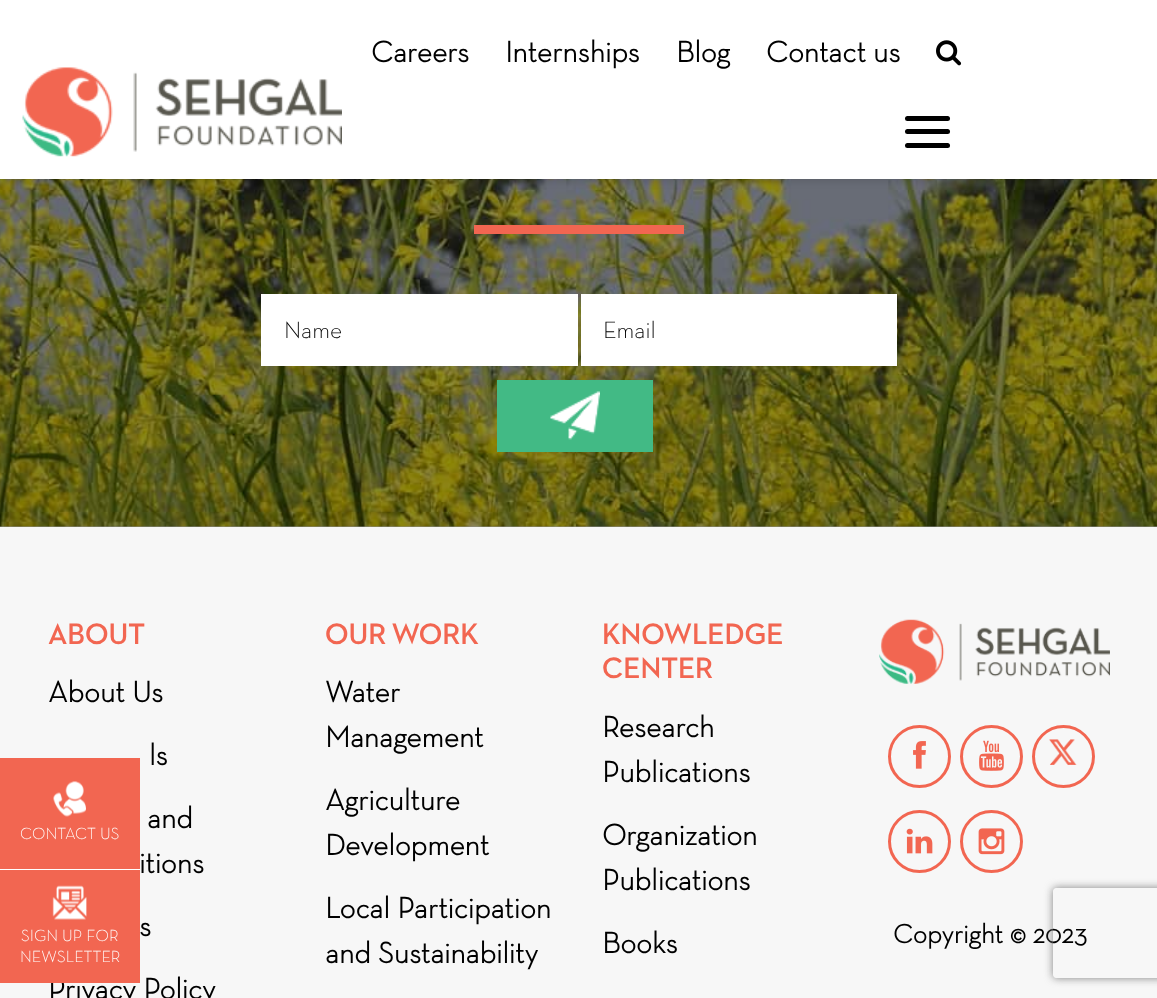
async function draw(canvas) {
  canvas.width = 1157
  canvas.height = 998
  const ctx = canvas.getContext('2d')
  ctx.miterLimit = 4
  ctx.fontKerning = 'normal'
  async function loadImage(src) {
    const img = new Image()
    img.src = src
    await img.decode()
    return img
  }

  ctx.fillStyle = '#8c8c8c'
  ctx.fillRect(0, 0, 1157, 998)
  ctx.drawImage(await loadImage('image2.png'), 0, 179, 1157, 348)
  ctx.fillStyle = '#00000026'
  ctx.filter = 'blur(4.5px)'
  ctx.beginPath()
  ctx.rect(0, 2, 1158, 178)
  ctx.fill()
  ctx.filter = 'none'
  ctx.fillStyle = '#fff'
  ctx.fillRect(0, 0, 1157, 179)
  ctx.font = 'bold 30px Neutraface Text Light'
  ctx.fillStyle = '#000'
  ctx.fillText('Careers', 371, 62)
  ctx.fillText('Internships', 505, 62)
  ctx.fillText('Blog', 676, 62)
  ctx.fillText('Contact us', 766, 62)
  ctx.drawImage(await loadImage('image0.png'), 936, 40, 26, 26)
  ctx.drawImage(await loadImage('image1.png'), 22, 67, 320, 90)
  ctx.beginPath()
  ctx.roundRect(905, 129, 45, 5, 2.5)
  ctx.fill()
  ctx.beginPath()
  ctx.roundRect(905, 116, 45, 5, 2.5)
  ctx.fill()
  ctx.beginPath()
  ctx.roundRect(905, 143, 45, 5, 2.5)
  ctx.fill()
  ctx.fillStyle = '#f26651'
  ctx.fillRect(474, 225, 210, 9)
  ctx.fillStyle = '#fff'
  ctx.fillRect(261, 294, 317, 72)
  ctx.font = '300 24px Neutraface Text Light'
  ctx.fillStyle = '#000'
  ctx.fillText('Name', 284, 338)
  ctx.fillStyle = '#fff'
  ctx.fillRect(581, 294, 316, 72)
  ctx.fillStyle = '#000'
  ctx.fillText('Email', 603, 338)
  ctx.fillStyle = '#42ba85'
  ctx.fillRect(497, 380, 156, 72)
  ctx.drawImage(await loadImage('image3.png'), 550, 391, 50, 49)
  ctx.fillStyle = '#f7f7f7'
  ctx.fillRect(0, 527, 1157, 471)
  ctx.font = 'bold 30px "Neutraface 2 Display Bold"'
  ctx.fillStyle = '#f26651'
  ctx.fillText('ABOUT', 48, 644)
  ctx.font = 'bold 30px Neutraface Text Light'
  ctx.fillStyle = '#000'
  ctx.fillText('About Us', 48, 702)
  ctx.fillText('ls', 149, 765)
  ctx.fillText('and', 147, 828)
  ctx.fillText('itions', 139, 873)
  ctx.fillText('s', 139, 936)
  ctx.fillText('Privacy Policy', 48, 999)
  ctx.font = 'bold 30px "Neutraface 2 Display Bold"'
  ctx.fillStyle = '#f26651'
  ctx.fillText('OUR WORK', 325, 644)
  ctx.font = 'bold 30px Neutraface Text Light'
  ctx.fillStyle = '#000'
  ctx.fillText('Water', 325, 702)
  ctx.fillText('Management', 325, 747)
  ctx.fillText('Agriculture', 325, 810)
  ctx.fillText('Development', 325, 855)
  ctx.fillText('Local Participation', 325, 918)
  ctx.fillText('and Sustainability', 325, 963)
  ctx.font = 'bold 30px "Neutraface 2 Display Bold"'
  ctx.fillStyle = '#f26651'
  ctx.fillText('KNOWLEDGE', 602, 644)
  ctx.fillText('CENTER', 602, 678)
  ctx.font = 'bold 30px Neutraface Text Light'
  ctx.fillStyle = '#000'
  ctx.fillText('Research', 602, 737)
  ctx.fillText('Publications', 602, 782)
  ctx.fillText('Organization', 602, 845)
  ctx.fillText('Publications', 602, 890)
  ctx.fillText('Books', 602, 953)
  ctx.drawImage(await loadImage('image4.png'), 879, 619, 231, 65)
  ctx.beginPath()
  ctx.arc(919.5, 756.5, 30, 0, 2 * Math.PI)
  ctx.strokeStyle = '#f26651'
  ctx.lineWidth = 3
  ctx.stroke()
  ctx.drawImage(await loadImage('image5.png'), 913, 741, 13, 28)
  ctx.beginPath()
  ctx.arc(991.5, 756.5, 30, 0, 2 * Math.PI)
  ctx.stroke()
  ctx.drawImage(await loadImage('image6.png'), 979, 740, 25, 31)
  ctx.beginPath()
  ctx.arc(1063.5, 756.5, 30, 0, 2 * Math.PI)
  ctx.stroke()
  ctx.drawImage(await loadImage('image7.png'), 1049, 739, 28, 26)
  ctx.beginPath()
  ctx.arc(919.5, 841.5, 30, 0, 2 * Math.PI)
  ctx.stroke()
  ctx.drawImage(await loadImage('image8.png'), 906, 828, 27, 26)
  ctx.beginPath()
  ctx.arc(991.5, 841.5, 30, 0, 2 * Math.PI)
  ctx.stroke()
  ctx.drawImage(await loadImage('image9.png'), 978, 828, 27, 27)
  ctx.font = 'bold 27px Neutraface Text Light'
  ctx.fillText('Copyright © 2023', 893, 943)
  ctx.fillStyle = '#f26651'
  ctx.fillRect(0, 758, 140, 111)
  ctx.fillStyle = '#fff'
  ctx.fillRect(0, 869, 140, 1)
  ctx.drawImage(await loadImage('image10.png'), 53, 781, 33, 36)
  ctx.font = '300 16.5px Neutraface Text Light'
  ctx.fillText('CONTACT US', 20, 839)
  ctx.fillStyle = '#f26651'
  ctx.fillRect(0, 870, 140, 113)
  ctx.drawImage(await loadImage('image11.png'), 52, 885, 35, 35)
  ctx.fillStyle = '#fff'
  ctx.fillText('SIGN UP FOR', 21, 941)
  ctx.fillText('NEWSLETTER', 20, 962)
  ctx.save()
  ctx.beginPath()
  ctx.moveTo(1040, 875)
  ctx.lineTo(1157, 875)
  ctx.lineTo(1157, 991)
  ctx.lineTo(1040, 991)
  ctx.closePath()
  ctx.moveTo(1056, 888)
  ctx.lineTo(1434, 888)
  ctx.bezierCurveTo(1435.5, 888, 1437, 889.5, 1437, 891)
  ctx.lineTo(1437, 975)
  ctx.bezierCurveTo(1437, 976.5, 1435.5, 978, 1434, 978)
  ctx.lineTo(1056, 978)
  ctx.bezierCurveTo(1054.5, 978, 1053, 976.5, 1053, 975)
  ctx.lineTo(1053, 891)
  ctx.bezierCurveTo(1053, 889.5, 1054.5, 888, 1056, 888)
  ctx.closePath()
  ctx.clip('evenodd')
  ctx.fillStyle = '#808080'
  ctx.filter = 'blur(4px)'
  ctx.beginPath()
  ctx.roundRect(1053, 888, 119, 90, 3)
  ctx.fill()
  ctx.filter = 'none'
  ctx.restore()
}

draw(document.querySelector('canvas'))
